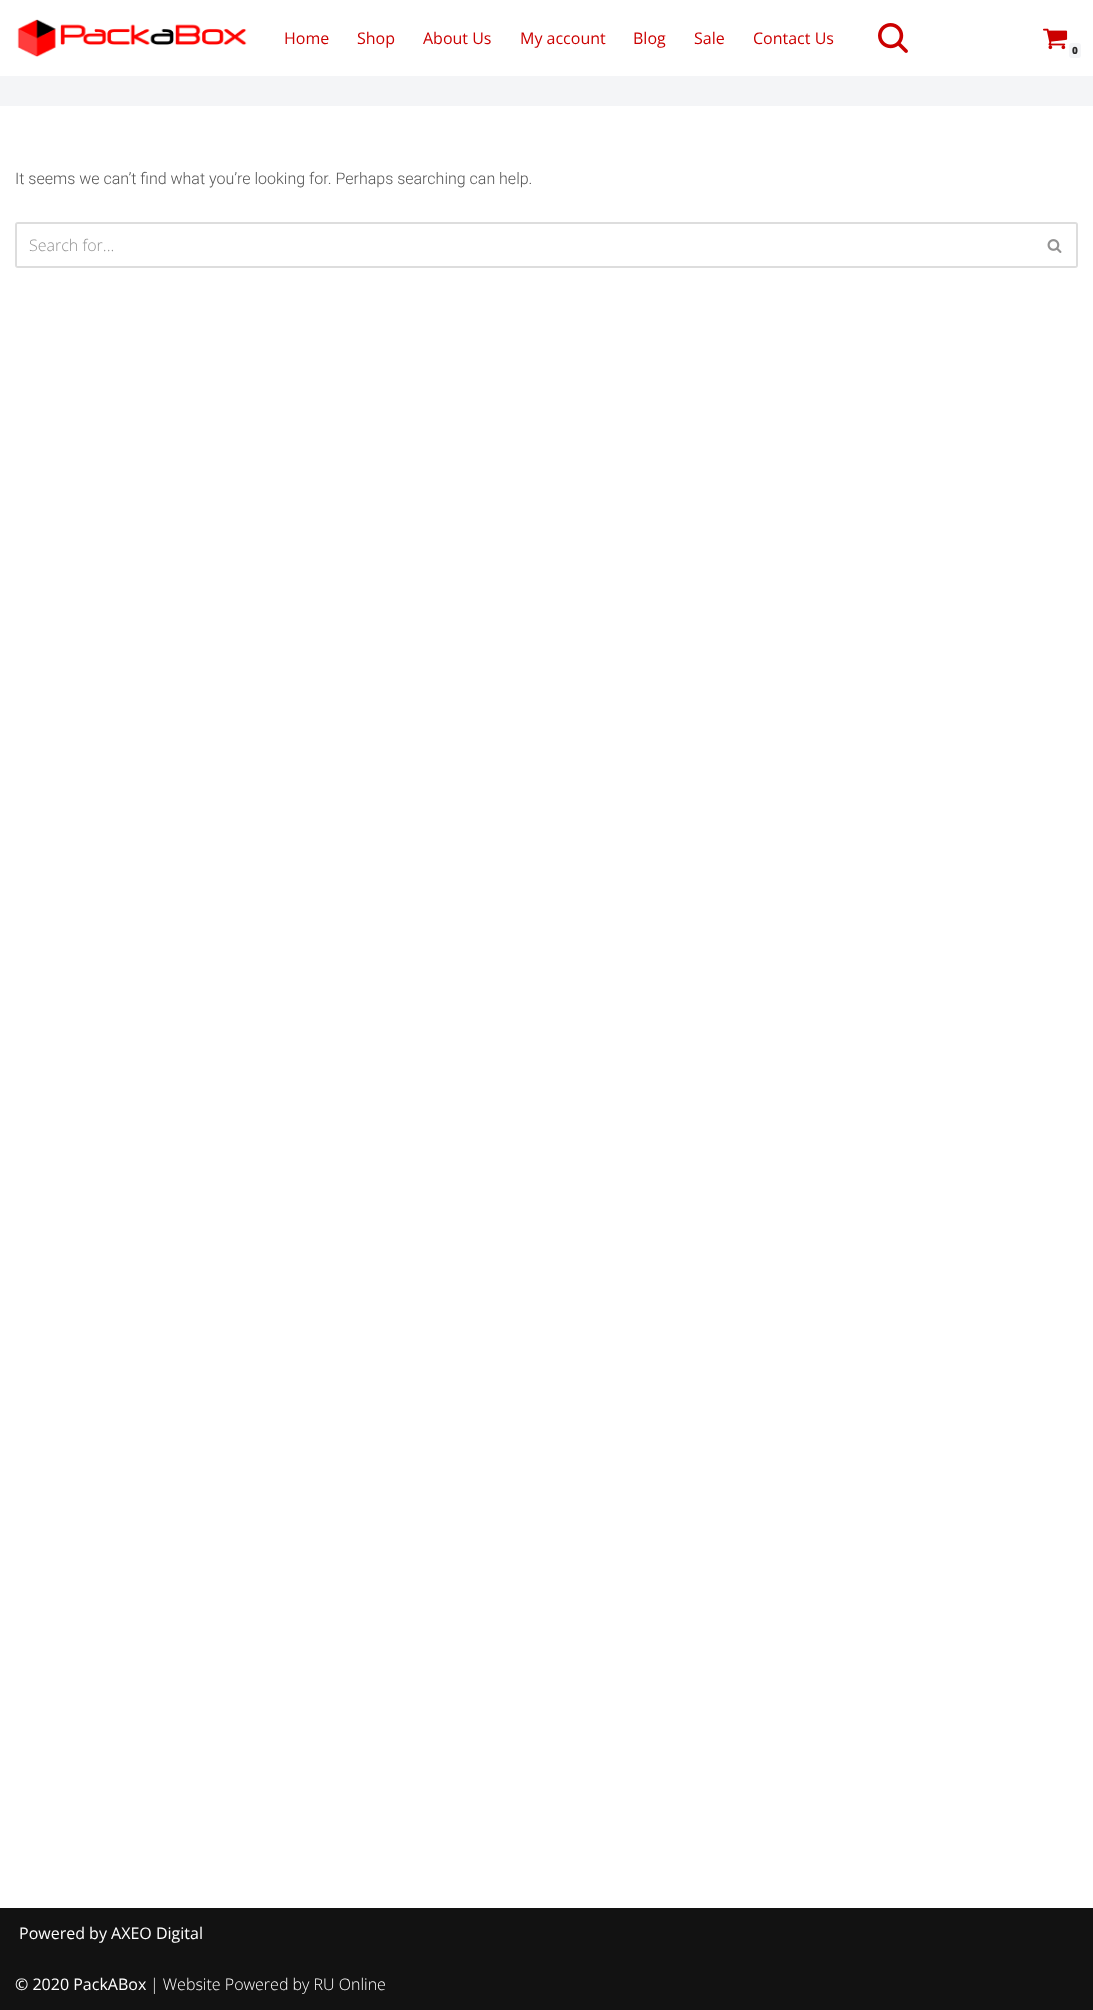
async function draw(canvas) {
  canvas.width = 1093
  canvas.height = 2010
  const ctx = canvas.getContext('2d')
  ctx.miterLimit = 4
  ctx.fontKerning = 'normal'
  async function loadImage(src) {
    const img = new Image()
    img.src = src
    await img.decode()
    return img
  }

  ctx.fillStyle = '#fff'
  ctx.fillRect(0, 0, 1093, 2010)
  ctx.fillStyle = '#f4f5f7'
  ctx.fillRect(0, 76, 1093, 30)
  ctx.drawImage(await loadImage('image0.png'), 17, 19, 230, 38)
  ctx.font = '16px Open Sans'
  ctx.fillStyle = '#cb0000'
  ctx.fillText('Home', 284, 44)
  ctx.fillText('Shop', 357, 44)
  ctx.fillText('About Us', 423, 44)
  ctx.fillText('My account', 520, 44)
  ctx.fillText('Blog', 633, 44)
  ctx.fillText('Sale', 694, 44)
  ctx.fillText('Contact Us', 753, 44)
  ctx.drawImage(await loadImage('image1.png'), 878, 23, 30, 30)
  ctx.drawImage(await loadImage('image2.png'), 1043, 28, 25, 22)
  ctx.fillStyle = '#f4f5f7'
  ctx.beginPath()
  ctx.roundRect(1069, 43, 12, 15, 3)
  ctx.fill()
  ctx.font = '800 10px Open Sans'
  ctx.fillStyle = '#272626'
  ctx.fillText('0', 1072, 54)
  ctx.font = '300 16px Roboto'
  ctx.fillStyle = '#555'
  ctx.fillText('It seems we can’t find what you’re looking for. Perhaps searching can help.', 15, 184)
  ctx.fillStyle = '#ddd'
  ctx.beginPath()
  ctx.moveTo(18, 222)
  ctx.lineTo(1033, 222)
  ctx.lineTo(1033, 268)
  ctx.lineTo(18, 268)
  ctx.bezierCurveTo(16, 268, 15, 267, 15, 265)
  ctx.lineTo(15, 225)
  ctx.bezierCurveTo(15, 223, 16, 222, 18, 222)
  ctx.closePath()
  ctx.moveTo(18, 224)
  ctx.lineTo(1033, 224)
  ctx.lineTo(1033, 266)
  ctx.lineTo(18, 266)
  ctx.bezierCurveTo(17, 266, 17, 266, 17, 265)
  ctx.lineTo(17, 225)
  ctx.bezierCurveTo(17, 224, 17, 224, 18, 224)
  ctx.closePath()
  ctx.fill('evenodd')
  ctx.font = '300 16px Open Sans'
  ctx.fillStyle = '#939393'
  ctx.fillText('Search for...', 29, 251)
  ctx.fillStyle = '#ddd'
  ctx.beginPath()
  ctx.moveTo(1033, 222)
  ctx.lineTo(1075, 222)
  ctx.bezierCurveTo(1077, 222, 1078, 223, 1078, 225)
  ctx.lineTo(1078, 265)
  ctx.bezierCurveTo(1078, 267, 1077, 268, 1075, 268)
  ctx.lineTo(1033, 268)
  ctx.closePath()
  ctx.moveTo(1033, 224)
  ctx.lineTo(1075, 224)
  ctx.bezierCurveTo(1076, 224, 1076, 224, 1076, 225)
  ctx.lineTo(1076, 265)
  ctx.bezierCurveTo(1076, 266, 1076, 266, 1075, 266)
  ctx.lineTo(1033, 266)
  ctx.closePath()
  ctx.fill('evenodd')
  ctx.drawImage(await loadImage('image3.png'), 1047, 239, 15, 14)
  ctx.fillStyle = '#121212'
  ctx.fillRect(0, 1908, 1093, 102)
  ctx.font = '16px Open Sans'
  ctx.fillStyle = '#fff'
  ctx.fillText('Powered by AXEO Digital', 19, 1939)
  ctx.fillText('© 2020 PackABox', 15, 1990)
  ctx.font = '300 16px Open Sans'
  ctx.fillText('| Website Powered by RU Online', 150, 1990)
}

draw(document.querySelector('canvas'))
